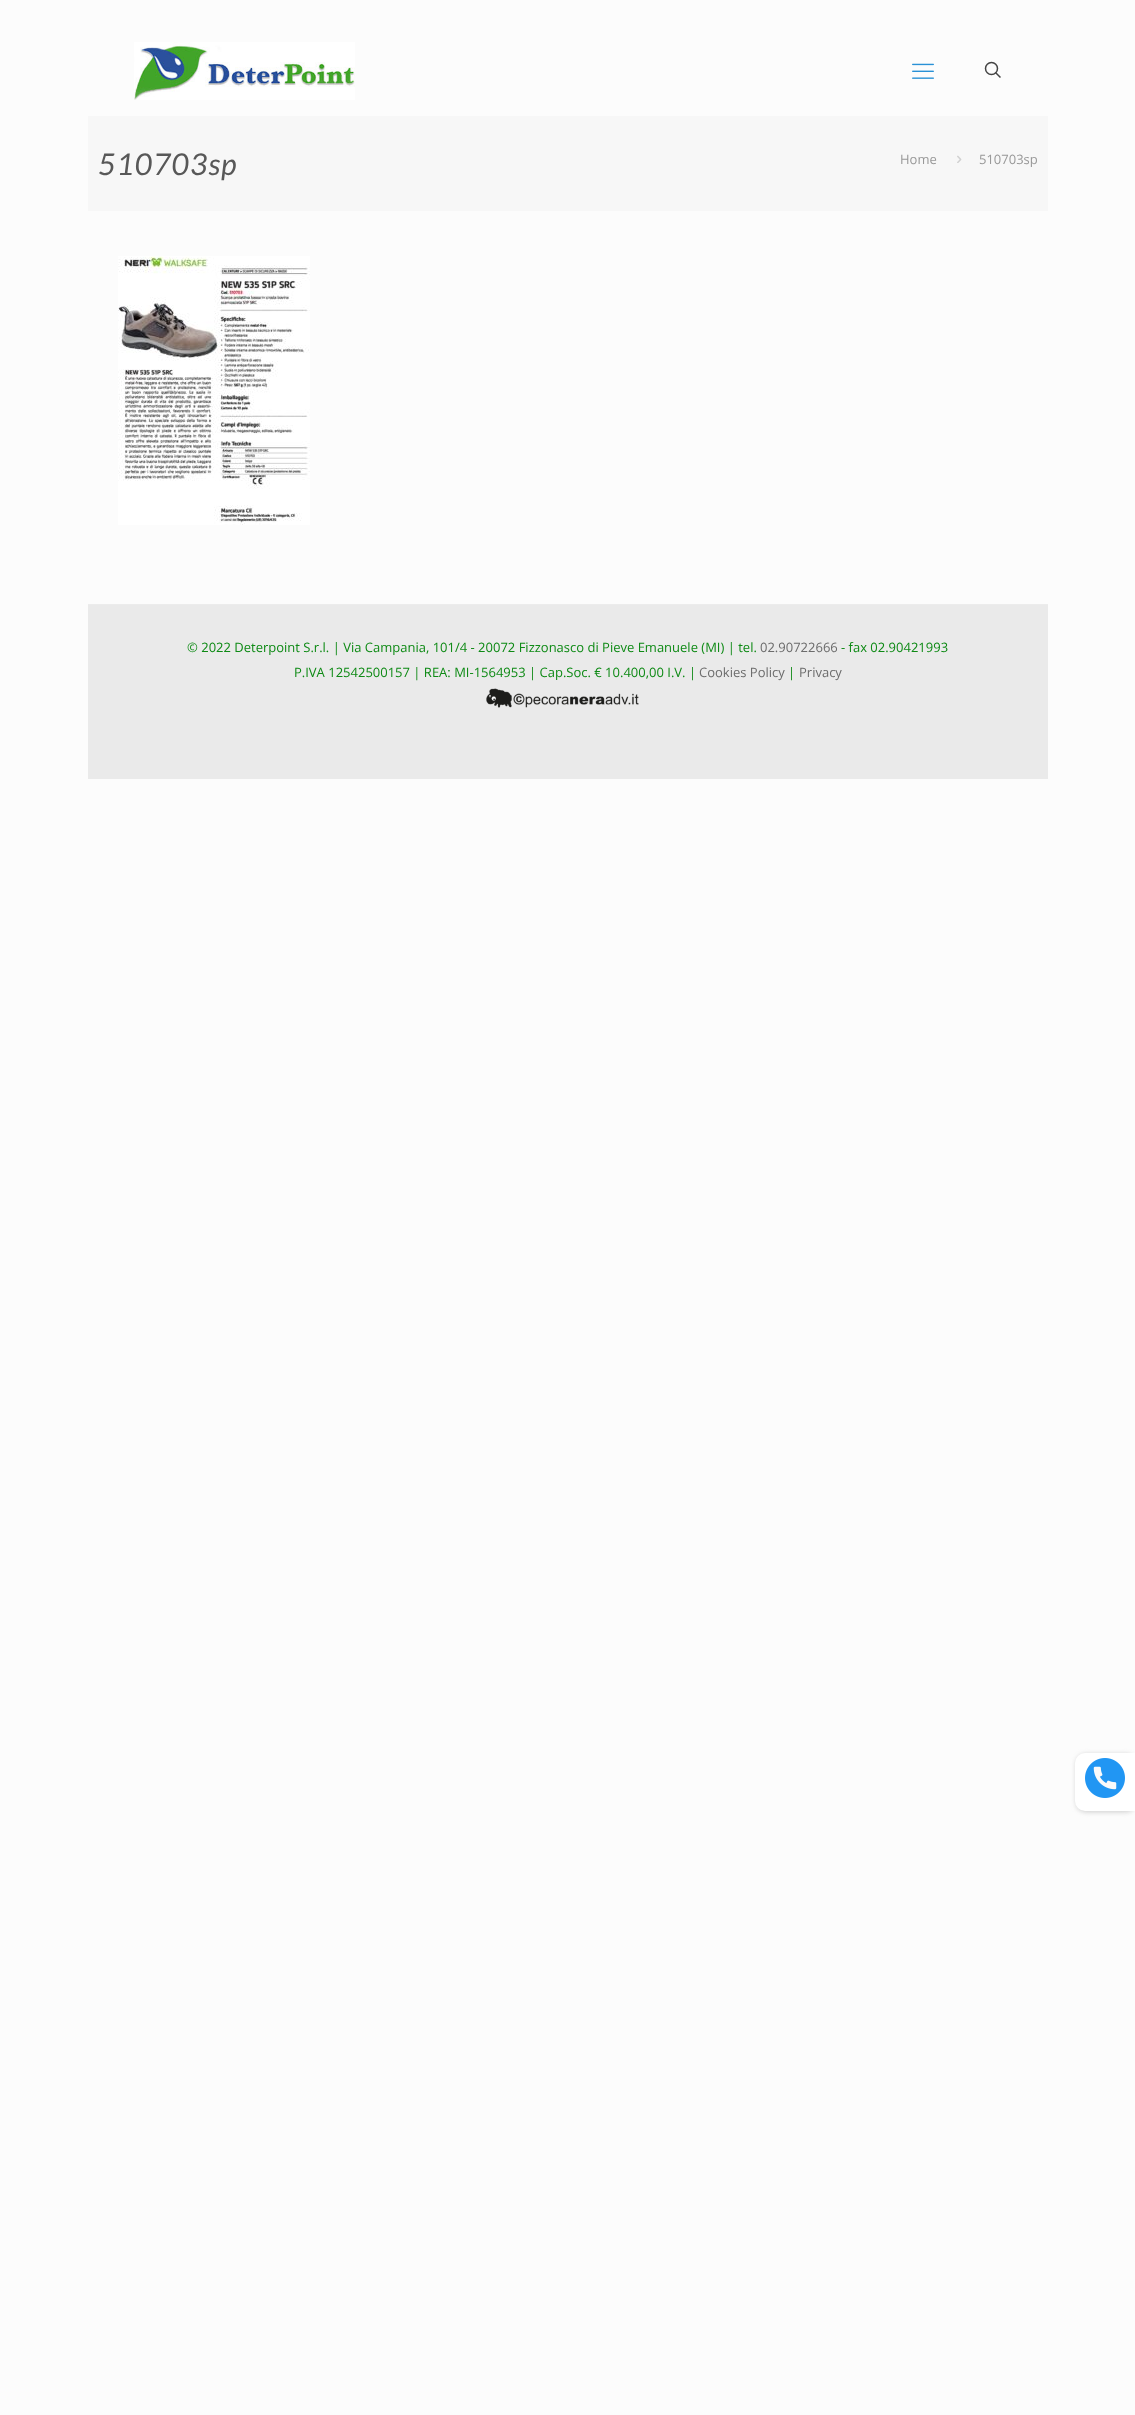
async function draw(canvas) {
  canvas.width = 1135
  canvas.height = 2415
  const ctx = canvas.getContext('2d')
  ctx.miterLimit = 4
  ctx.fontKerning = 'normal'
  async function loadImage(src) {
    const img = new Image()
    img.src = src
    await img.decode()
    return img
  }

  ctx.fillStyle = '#fcfcfc'
  ctx.fillRect(0, 0, 1135, 2415)
  ctx.drawImage(await loadImage('image0.png'), 134, 42, 221, 58)
  ctx.drawImage(await loadImage('image1.png'), 912, 63, 22, 16)
  ctx.beginPath()
  ctx.arc(991.5, 68.5, 6, 0, 2 * Math.PI)
  ctx.strokeStyle = '#444'
  ctx.lineWidth = 1.5
  ctx.stroke()
  ctx.beginPath()
  ctx.moveTo(995.5, 72.5)
  ctx.lineTo(1000.5, 77.5)
  ctx.stroke()
  ctx.fillStyle = '#f7f7f7'
  ctx.fillRect(88, 116, 960, 95)
  ctx.letterSpacing = '1px'
  ctx.font = 'italic 30px Lato'
  ctx.fillStyle = '#585858'
  ctx.fillText('510703sp', 98, 175)
  ctx.letterSpacing = '0px'
  ctx.font = '13px Open Sans'
  ctx.fillStyle = '#989898'
  ctx.fillText('Home', 900, 164)
  ctx.drawImage(await loadImage('image2.png'), 957, 155, 5, 8)
  ctx.fillText('510703sp', 979, 164)
  ctx.drawImage(await loadImage('image3.png'), 118, 256, 192, 269)
  ctx.fillStyle = '#eaeaea'
  ctx.fillRect(88, 605, 960, 174)
  ctx.fillStyle = '#ececec'
  ctx.fillRect(88, 604, 960, 1)
  ctx.fillStyle = '#0e8a15'
  ctx.fillText('© 2022 Deterpoint S.r.l. | Via Campania, 101/4 - 20072 Fizzonasco di Pieve Emanuele (MI) | tel.', 187, 652)
  ctx.fillStyle = '#6c6c6c'
  ctx.fillText('02.90722666', 760, 652)
  ctx.fillStyle = '#0e8a15'
  ctx.fillText('- fax 02.90421993', 841, 652)
  ctx.fillText('P.IVA 12542500157 | REA: MI-1564953 | Cap.Soc. € 10.400,00 I.V. |', 294, 677)
  ctx.fillStyle = '#6c6c6c'
  ctx.fillText('Cookies Policy', 699, 677)
  ctx.fillStyle = '#0e8a15'
  ctx.fillText('|', 788, 677)
  ctx.fillStyle = '#6c6c6c'
  ctx.fillText('Privacy', 799, 677)
  ctx.drawImage(await loadImage('image4.png'), 486, 688, 153, 20)
  ctx.fillStyle = '#ccc'
  ctx.filter = 'blur(2.5px)'
  ctx.beginPath()
  ctx.roundRect(1076, 1754, 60, 58, 10)
  ctx.fill()
  ctx.filter = 'none'
  ctx.fillStyle = '#fff'
  ctx.beginPath()
  ctx.roundRect(1075, 1753, 60, 58, [10, 0, 0, 10])
  ctx.fill()
  ctx.drawImage(await loadImage('image5.png'), 1085, 1758, 40, 40)
}

draw(document.querySelector('canvas'))
